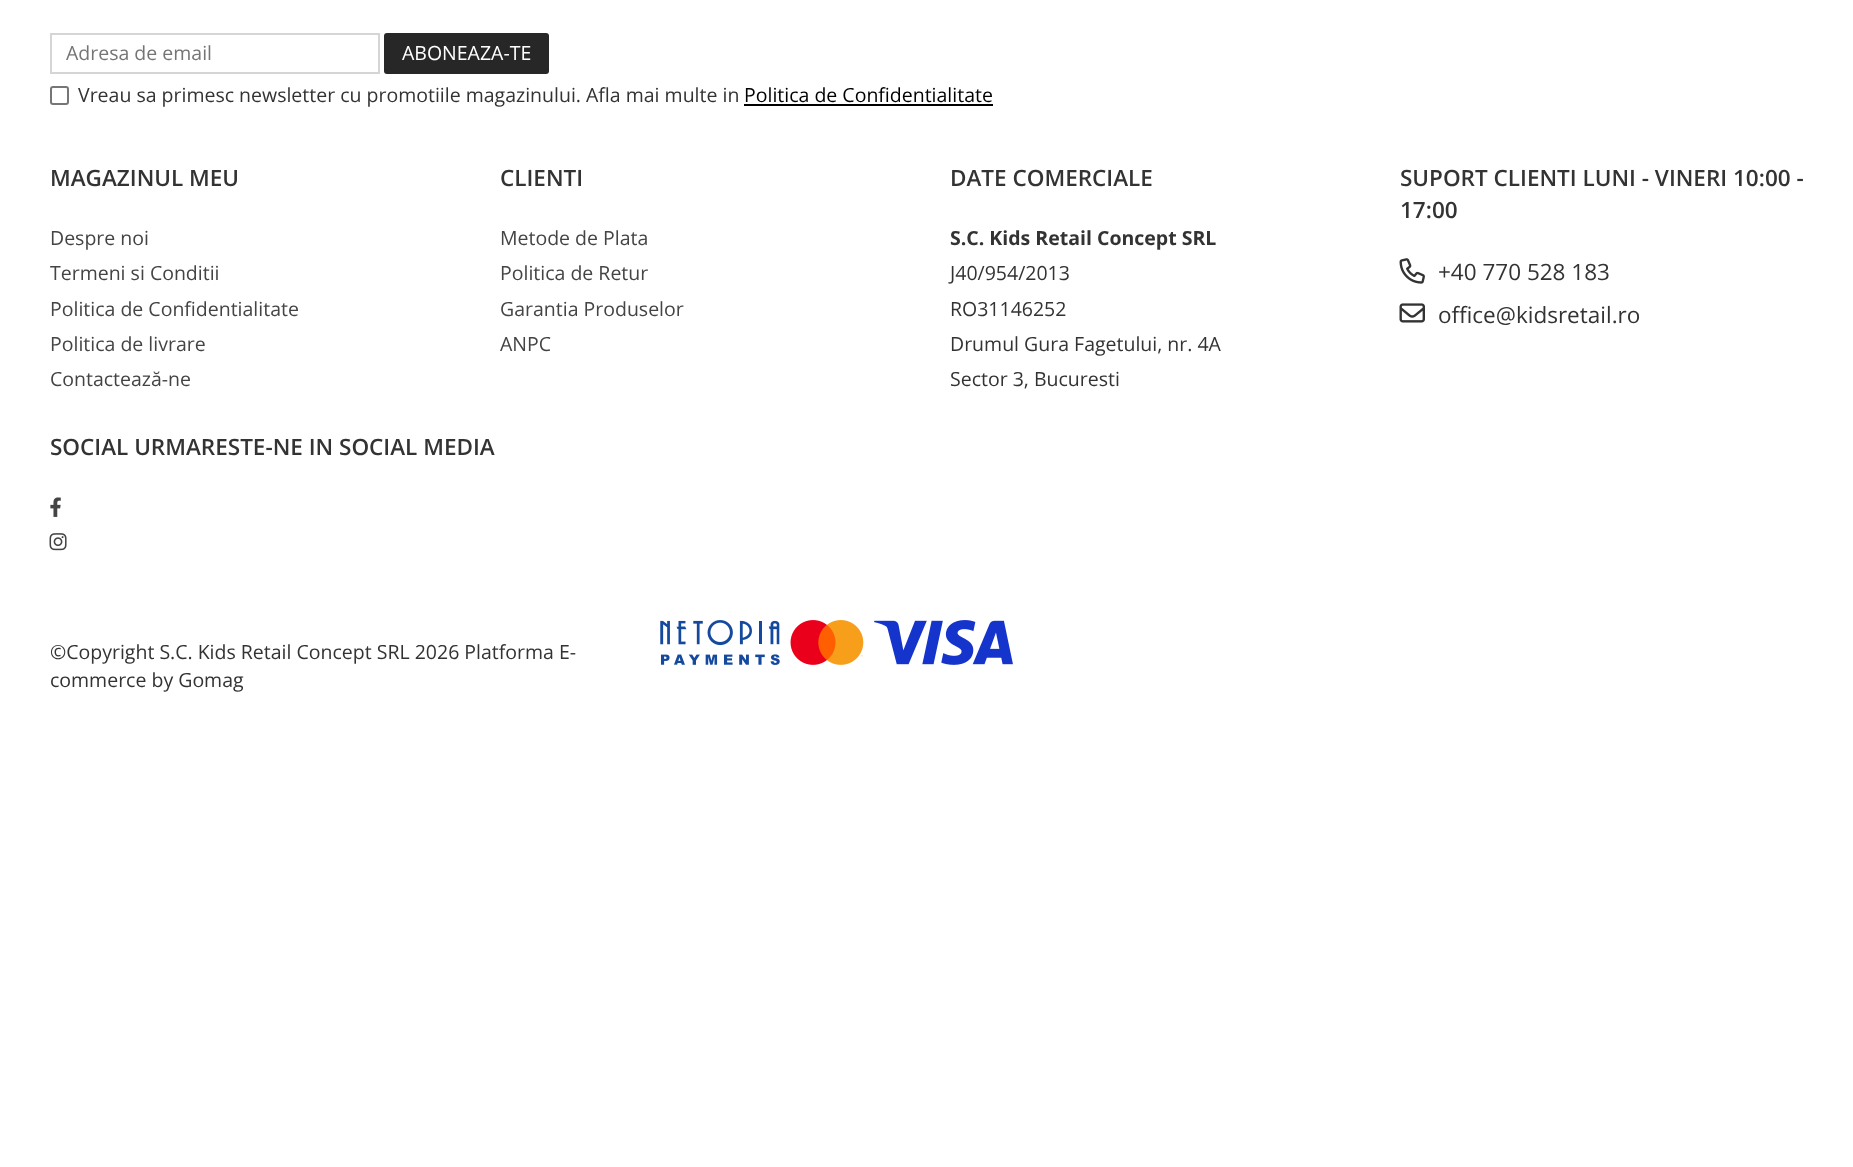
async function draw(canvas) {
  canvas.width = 1853
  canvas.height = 1167
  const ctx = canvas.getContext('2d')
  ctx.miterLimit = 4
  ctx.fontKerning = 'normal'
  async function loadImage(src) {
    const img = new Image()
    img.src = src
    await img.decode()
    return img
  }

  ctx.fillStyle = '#fff'
  ctx.fillRect(0, 0, 1853, 1167)
  ctx.strokeStyle = '#d5d5d5'
  ctx.lineWidth = 2
  ctx.strokeRect(51, 34, 328, 39)
  ctx.font = '19.5px Open Sans'
  ctx.fillStyle = '#757575'
  ctx.fillText('Adresa de email', 66, 60)
  ctx.fillStyle = '#272727'
  ctx.beginPath()
  ctx.roundRect(384, 33, 165, 41, 3)
  ctx.fill()
  ctx.fillStyle = '#fff'
  ctx.fillText('ABONEAZA-TE', 402, 60)
  ctx.beginPath()
  ctx.roundRect(51, 87, 17, 17, 2)
  ctx.strokeStyle = '#767676'
  ctx.stroke()
  ctx.fillStyle = '#333'
  ctx.fillText('Vreau sa primesc newsletter cu promotiile magazinului. Afla mai multe in', 78, 102)
  ctx.fillStyle = '#000'
  ctx.fillText('Politica de Confidentialitate', 744, 102)
  ctx.fillRect(744, 104, 249, 2)
  ctx.font = '600 22.5px Open Sans'
  ctx.fillStyle = '#333'
  ctx.fillText('MAGAZINUL MEU', 50, 186)
  ctx.font = '19.5px Open Sans'
  ctx.fillStyle = '#444'
  ctx.fillText('Despre noi', 50, 245)
  ctx.fillText('Termeni si Conditii', 50, 280)
  ctx.fillText('Politica de Confidentialitate', 50, 316)
  ctx.fillText('Politica de livrare', 50, 351)
  ctx.fillText('Contactează-ne', 50, 386)
  ctx.font = '600 22.5px Open Sans'
  ctx.fillStyle = '#333'
  ctx.fillText('CLIENTI', 500, 186)
  ctx.font = '19.5px Open Sans'
  ctx.fillStyle = '#444'
  ctx.fillText('Metode de Plata', 500, 245)
  ctx.fillText('Politica de Retur', 500, 280)
  ctx.fillText('Garantia Produselor', 500, 316)
  ctx.fillText('ANPC', 500, 351)
  ctx.font = '600 22.5px Open Sans'
  ctx.fillStyle = '#333'
  ctx.fillText('DATE COMERCIALE', 950, 186)
  ctx.font = 'bold 19.5px Open Sans'
  ctx.fillText('S.C. Kids Retail Concept SRL', 950, 245)
  ctx.font = '19.5px Open Sans'
  ctx.fillText('J40/954/2013', 950, 280)
  ctx.fillText('RO31146252', 950, 316)
  ctx.fillText('Drumul Gura Fagetului, nr. 4A', 950, 351)
  ctx.fillText('Sector 3, Bucuresti', 950, 386)
  ctx.font = '600 22.5px Open Sans'
  ctx.fillText('SUPORT CLIENTI LUNI - VINERI 10:00 -', 1400, 186)
  ctx.fillText('17:00', 1400, 218)
  ctx.drawImage(await loadImage('image0.png'), 1399, 258, 26, 26)
  ctx.font = '22.5px Open Sans'
  ctx.fillText('+40 770 528 183', 1438, 280)
  ctx.drawImage(await loadImage('image1.png'), 1399, 303, 26, 20)
  ctx.fillText('office@kidsretail.ro', 1438, 323)
  ctx.font = '600 22.5px Open Sans'
  ctx.fillText('SOCIAL URMARESTE-NE IN SOCIAL MEDIA', 50, 455)
  ctx.drawImage(await loadImage('image2.png'), 50, 497, 11, 20)
  ctx.drawImage(await loadImage('image3.png'), 49, 533, 18, 18)
  ctx.font = '19.5px Open Sans'
  ctx.fillText('©Copyright S.C. Kids Retail Concept SRL 2026 Platforma E-', 50, 659)
  ctx.fillText('commerce by Gomag', 50, 687)
  ctx.drawImage(await loadImage('image4.png'), 660, 620, 353, 45)
}

draw(document.querySelector('canvas'))
